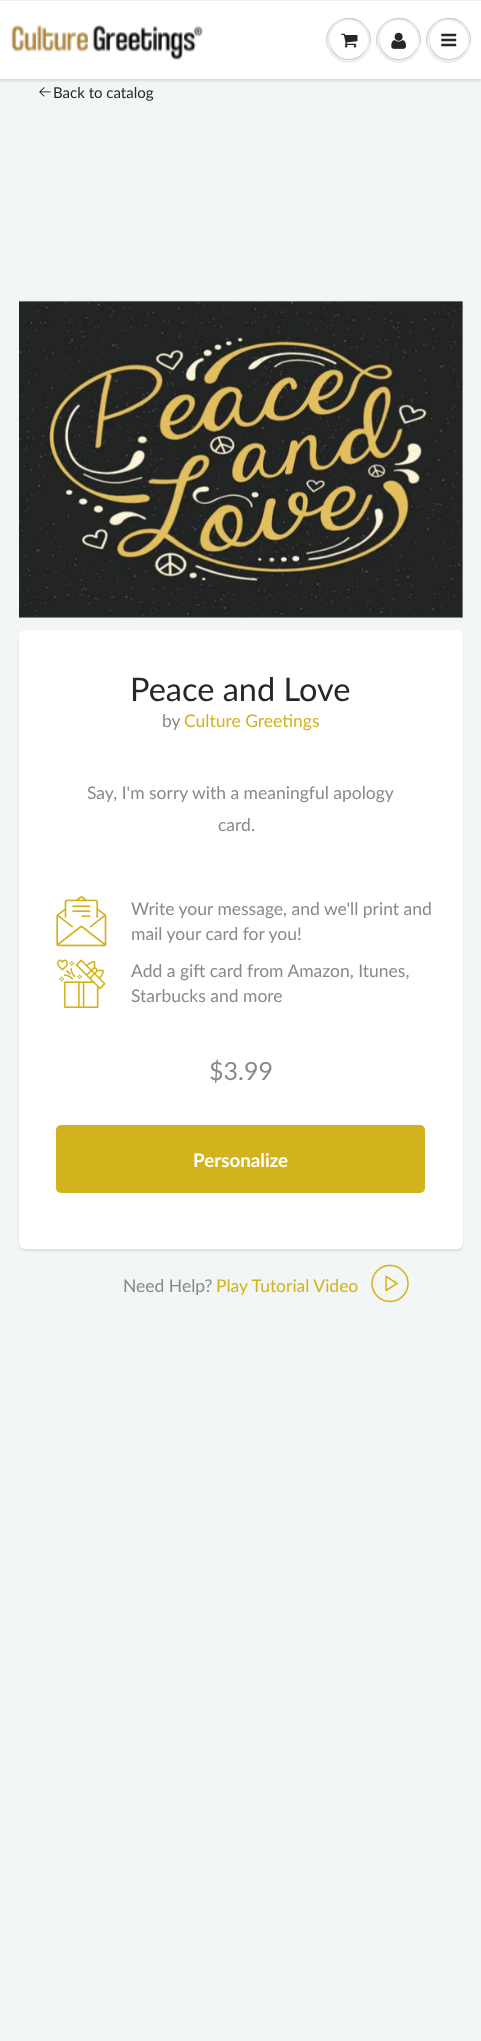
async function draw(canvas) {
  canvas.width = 481
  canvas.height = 2041
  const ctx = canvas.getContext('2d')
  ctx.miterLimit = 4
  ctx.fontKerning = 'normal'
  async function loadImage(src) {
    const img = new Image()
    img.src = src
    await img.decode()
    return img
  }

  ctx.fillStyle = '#f3f6f6'
  ctx.fillRect(0, 0, 481, 2041)
  ctx.fillStyle = '#0b191c1f'
  ctx.filter = 'blur(1px)'
  ctx.beginPath()
  ctx.rect(0, 3, 481, 78)
  ctx.fill()
  ctx.filter = 'none'
  ctx.fillStyle = '#fff'
  ctx.fillRect(0, 1, 481, 78)
  ctx.fillStyle = '#ecefef'
  ctx.fillRect(0, 0, 481, 1)
  ctx.drawImage(await loadImage('image0.png'), 11, 24, 192, 36)
  ctx.fillStyle = '#edefef'
  ctx.beginPath()
  ctx.arc(348.5, 40.5, 22.5, 0, 2 * Math.PI)
  ctx.fill()
  ctx.fillStyle = '#c9cbcb'
  ctx.beginPath()
  ctx.moveTo(349, 19)
  ctx.bezierCurveTo(365, 19, 372, 33, 370, 46)
  ctx.bezierCurveTo(372, 40, 371, 33, 367, 28)
  ctx.bezierCurveTo(352, 5, 318, 25, 328, 49)
  ctx.bezierCurveTo(324, 36, 331, 19, 349, 19)
  ctx.closePath()
  ctx.fill()
  ctx.beginPath()
  ctx.moveTo(330, 41)
  ctx.bezierCurveTo(329, 61.5, 358.5, 67.5, 366.5, 48.5)
  ctx.bezierCurveTo(368.5, 44.5, 368.5, 39.5, 367, 35)
  ctx.bezierCurveTo(372, 53, 349.5, 67, 335.5, 53.5)
  ctx.bezierCurveTo(332.5, 50, 330, 45.5, 330, 41)
  ctx.closePath()
  ctx.fill()
  ctx.fillStyle = '#fff'
  ctx.beginPath()
  ctx.arc(349, 40, 19, 0, 2 * Math.PI)
  ctx.fill()
  ctx.beginPath()
  ctx.moveTo(349, 22)
  ctx.bezierCurveTo(365, 22, 370, 39, 365, 51)
  ctx.bezierCurveTo(378, 30, 347, 8, 333, 29)
  ctx.bezierCurveTo(330, 34, 329, 39, 331, 44)
  ctx.bezierCurveTo(329, 34, 335, 22, 349, 22)
  ctx.closePath()
  ctx.fill()
  ctx.drawImage(await loadImage('image1.png'), 341, 33, 17, 15)
  ctx.fillStyle = '#edefef'
  ctx.beginPath()
  ctx.arc(398.5, 40.5, 22.5, 0, 2 * Math.PI)
  ctx.fill()
  ctx.fillStyle = '#c9cbcb'
  ctx.beginPath()
  ctx.moveTo(399, 19)
  ctx.bezierCurveTo(415, 19, 422, 33, 420, 46)
  ctx.bezierCurveTo(422, 40, 421, 33, 417, 28)
  ctx.bezierCurveTo(402, 5, 368, 25, 378, 49)
  ctx.bezierCurveTo(374, 36, 381, 19, 399, 19)
  ctx.closePath()
  ctx.fill()
  ctx.beginPath()
  ctx.moveTo(380, 41)
  ctx.bezierCurveTo(379, 61.5, 408.5, 67.5, 416.5, 48.5)
  ctx.bezierCurveTo(418.5, 44.5, 418.5, 39.5, 417, 35)
  ctx.bezierCurveTo(422, 53, 399.5, 67, 385.5, 53.5)
  ctx.bezierCurveTo(382.5, 50, 380, 45.5, 380, 41)
  ctx.closePath()
  ctx.fill()
  ctx.fillStyle = '#fff'
  ctx.beginPath()
  ctx.arc(399, 40, 19, 0, 2 * Math.PI)
  ctx.fill()
  ctx.beginPath()
  ctx.moveTo(399, 22)
  ctx.bezierCurveTo(415, 22, 420, 39, 415, 51)
  ctx.bezierCurveTo(428, 30, 397, 8, 383, 29)
  ctx.bezierCurveTo(380, 34, 379, 39, 381, 44)
  ctx.bezierCurveTo(379, 34, 385, 22, 399, 22)
  ctx.closePath()
  ctx.fill()
  ctx.drawImage(await loadImage('image2.png'), 391, 32, 15, 17)
  ctx.fillStyle = '#edefef'
  ctx.beginPath()
  ctx.arc(448.5, 40.5, 22.5, 0, 2 * Math.PI)
  ctx.fill()
  ctx.fillStyle = '#c9cbcb'
  ctx.beginPath()
  ctx.moveTo(449, 19)
  ctx.bezierCurveTo(465, 19, 472, 33, 470, 46)
  ctx.bezierCurveTo(472, 40, 471, 33, 467, 28)
  ctx.bezierCurveTo(452, 5, 418, 25, 428, 49)
  ctx.bezierCurveTo(424, 36, 431, 19, 449, 19)
  ctx.closePath()
  ctx.fill()
  ctx.beginPath()
  ctx.moveTo(430, 41)
  ctx.bezierCurveTo(429, 61.5, 458.5, 67.5, 466.5, 48.5)
  ctx.bezierCurveTo(468.5, 44.5, 468.5, 39.5, 467, 35)
  ctx.bezierCurveTo(472, 53, 449.5, 67, 435.5, 53.5)
  ctx.bezierCurveTo(432.5, 50, 430, 45.5, 430, 41)
  ctx.closePath()
  ctx.fill()
  ctx.fillStyle = '#fff'
  ctx.beginPath()
  ctx.arc(449, 40, 19, 0, 2 * Math.PI)
  ctx.fill()
  ctx.beginPath()
  ctx.moveTo(449, 22)
  ctx.bezierCurveTo(465, 22, 470, 39, 465, 51)
  ctx.bezierCurveTo(478, 30, 447, 8, 433, 29)
  ctx.bezierCurveTo(430, 34, 429, 39, 431, 44)
  ctx.bezierCurveTo(429, 34, 435, 22, 449, 22)
  ctx.closePath()
  ctx.fill()
  ctx.drawImage(await loadImage('image3.png'), 441, 33, 16, 14)
  ctx.drawImage(await loadImage('image4.png'), 39, 87, 12, 10)
  ctx.font = '15px Lato'
  ctx.fillStyle = '#282727'
  ctx.fillText('Back to catalog', 53, 98)
  ctx.fillStyle = '#e6e6e6'
  ctx.beginPath()
  ctx.moveTo(116, 301)
  ctx.lineTo(366, 301)
  ctx.lineTo(376, 612)
  ctx.lineTo(126, 612)
  ctx.closePath()
  ctx.fill()
  ctx.drawImage(await loadImage('image5.png'), 19, 300, 444, 318)
  ctx.fillStyle = '#0b191c1a'
  ctx.filter = 'blur(1px)'
  ctx.beginPath()
  ctx.roundRect(19, 633, 444, 618, 6)
  ctx.fill()
  ctx.filter = 'none'
  ctx.fillStyle = '#fff'
  ctx.beginPath()
  ctx.roundRect(19, 630, 444, 619, 6)
  ctx.fill()
  ctx.font = '32.5px Lato'
  ctx.fillStyle = '#282727'
  ctx.fillText('Peace and Love', 130, 701)
  ctx.font = '17.5px Lato'
  ctx.fillStyle = '#898989'
  ctx.fillText('by', 162, 727)
  ctx.fillStyle = '#d2b31d'
  ctx.fillText('Culture Greetings', 184, 727)
  ctx.fillStyle = '#898989'
  ctx.fillText('Say, I\'m sorry with a meaningful apology', 87, 799)
  ctx.fillText('card.', 218, 831)
  ctx.drawImage(await loadImage('image6.png'), 56, 896, 51, 51)
  ctx.fillText('Write your message, and we\'ll print and', 131, 915)
  ctx.fillText('mail your card for you!', 131, 940)
  ctx.drawImage(await loadImage('image7.png'), 57, 959, 49, 49)
  ctx.fillText('Add a gift card from Amazon, Itunes,', 131, 977)
  ctx.fillText('Starbucks and more', 131, 1002)
  ctx.font = '25px Lato'
  ctx.fillText('$3.99', 209, 1080)
  ctx.fillStyle = '#d2b31d'
  ctx.beginPath()
  ctx.roundRect(56, 1125, 369, 68, 5)
  ctx.fill()
  ctx.font = 'bold 18.75px Lato'
  ctx.fillStyle = '#fff'
  ctx.fillText('Personalize', 193, 1167)
  ctx.font = '17.5px Lato'
  ctx.fillStyle = '#898989'
  ctx.fillText('Need Help?', 123, 1292)
  ctx.fillStyle = '#d2b31d'
  ctx.fillText('Play Tutorial Video', 216, 1292)
  ctx.drawImage(await loadImage('image8.png'), 371, 1264, 38, 39)
}

draw(document.querySelector('canvas'))
